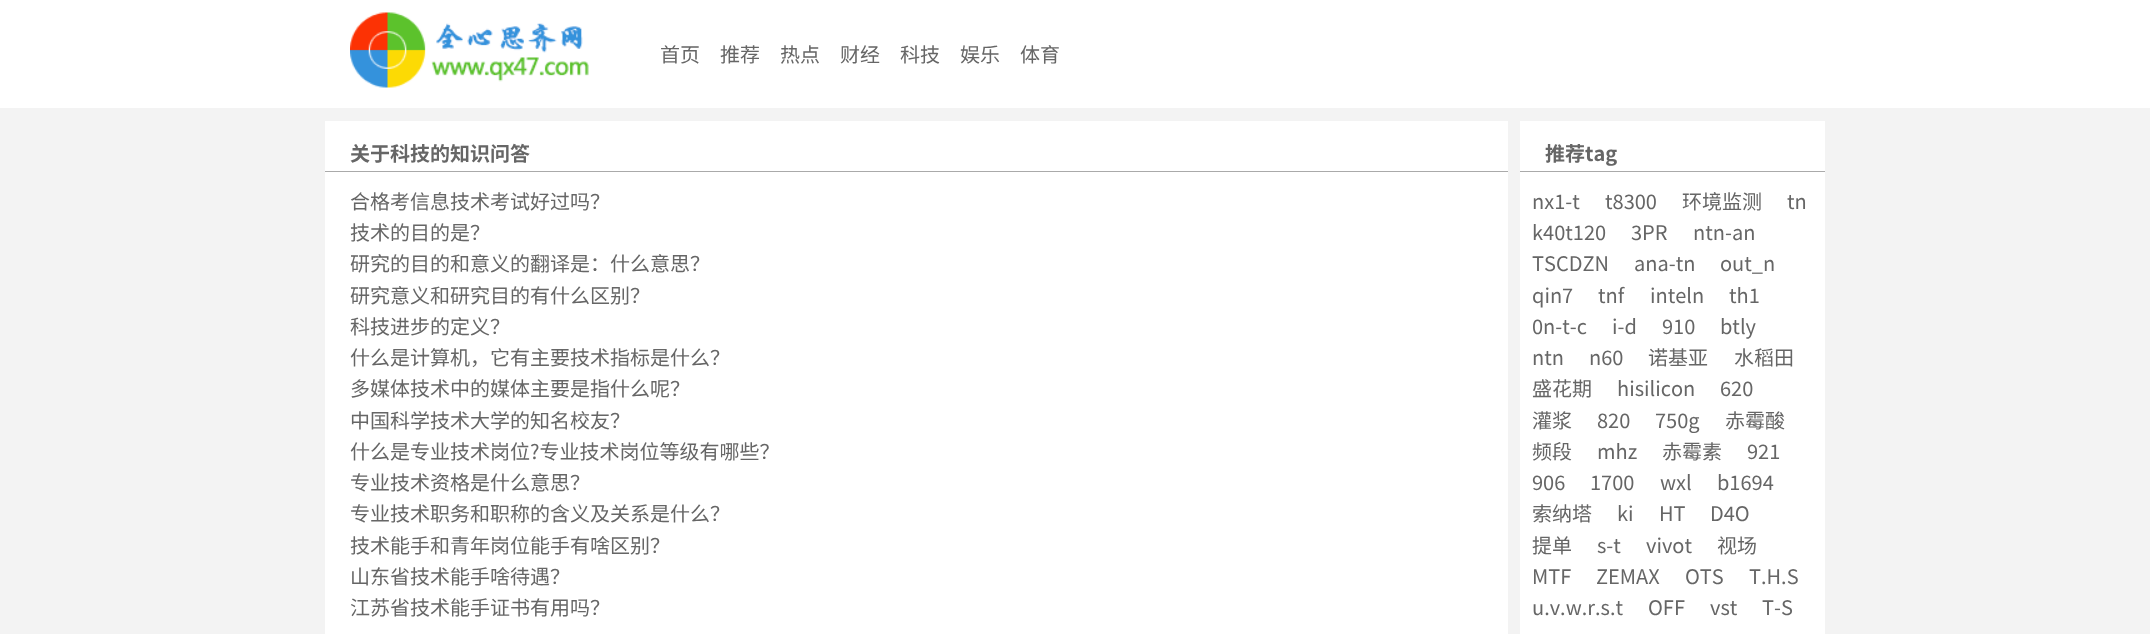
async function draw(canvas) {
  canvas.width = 2150
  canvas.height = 634
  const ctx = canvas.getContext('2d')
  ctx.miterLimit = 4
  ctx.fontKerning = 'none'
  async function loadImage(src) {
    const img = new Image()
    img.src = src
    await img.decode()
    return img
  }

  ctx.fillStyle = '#f3f3f3'
  ctx.fillRect(0, 0, 2150, 634)
  ctx.fillStyle = '#fff'
  ctx.fillRect(0, 0, 2150, 108)
  ctx.drawImage(await loadImage('image0.png'), 350, 12, 239, 76)
  ctx.font = '20px Noto Sans CJK SC'
  ctx.fillStyle = '#666'
  ctx.fillText('首页', 660, 62)
  ctx.fillText('推荐', 720, 62)
  ctx.fillText('热点', 780, 62)
  ctx.fillText('财经', 840, 62)
  ctx.fillText('科技', 900, 62)
  ctx.fillText('娱乐', 960, 62)
  ctx.fillText('体育', 1020, 62)
  ctx.fillStyle = '#fff'
  ctx.fillRect(325, 121, 1183, 513)
  ctx.fillStyle = '#aaa'
  ctx.fillRect(325, 171, 1183, 1)
  ctx.font = 'bold 20px Noto Sans CJK SC'
  ctx.fillStyle = '#666'
  ctx.fillText('关于科技的知识问答', 350, 161)
  ctx.font = '20px Noto Sans CJK SC'
  ctx.fillText('合格考信息技术考试好过吗？', 350, 209)
  ctx.fillText('技术的目的是？', 350, 240)
  ctx.fillText('研究的目的和意义的翻译是：什么意思？', 350, 271)
  ctx.fillText('研究意义和研究目的有什么区别？', 350, 303)
  ctx.fillText('科技进步的定义？', 350, 334)
  ctx.fillText('什么是计算机，它有主要技术指标是什么？', 350, 365)
  ctx.fillText('多媒体技术中的媒体主要是指什么呢？', 350, 396)
  ctx.fillText('中国科学技术大学的知名校友？', 350, 428)
  ctx.fillText('什么是专业技术岗位?专业技术岗位等级有哪些？', 350, 459)
  ctx.fillText('专业技术资格是什么意思？', 350, 490)
  ctx.fillText('专业技术职务和职称的含义及关系是什么？', 350, 521)
  ctx.fillText('技术能手和青年岗位能手有啥区别？', 350, 553)
  ctx.fillText('山东省技术能手啥待遇？', 350, 584)
  ctx.fillText('江苏省技术能手证书有用吗？', 350, 615)
  ctx.fillStyle = '#fff'
  ctx.fillRect(1520, 121, 305, 513)
  ctx.fillStyle = '#aaa'
  ctx.fillRect(1520, 171, 305, 1)
  ctx.font = 'bold 20px Noto Sans CJK SC'
  ctx.fillStyle = '#666'
  ctx.fillText('推荐tag', 1545, 161)
  ctx.font = '20px Noto Sans CJK SC'
  ctx.fillText('nx1-t', 1532, 209)
  ctx.fillText('t8300', 1605, 209)
  ctx.fillText('环境监测', 1682, 209)
  ctx.fillText('tn', 1787, 209)
  ctx.fillText('k40t120', 1532, 240)
  ctx.fillText('3PR', 1631, 240)
  ctx.fillText('ntn-an', 1693, 240)
  ctx.fillText('TSCDZN', 1532, 271)
  ctx.fillText('ana-tn', 1634, 271)
  ctx.fillText('out_n', 1720, 271)
  ctx.fillText('qin7', 1532, 303)
  ctx.fillText('tnf', 1598, 303)
  ctx.fillText('inteln', 1650, 303)
  ctx.fillText('th1', 1729, 303)
  ctx.fillText('0n-t-c', 1532, 334)
  ctx.fillText('i-d', 1612, 334)
  ctx.fillText('910', 1662, 334)
  ctx.fillText('btly', 1720, 334)
  ctx.fillText('ntn', 1532, 365)
  ctx.fillText('n60', 1589, 365)
  ctx.fillText('诺基亚', 1648, 365)
  ctx.fillText('水稻田', 1734, 365)
  ctx.fillText('盛花期', 1532, 396)
  ctx.fillText('hisilicon', 1617, 396)
  ctx.fillText('620', 1720, 396)
  ctx.fillText('灌浆', 1532, 428)
  ctx.fillText('820', 1597, 428)
  ctx.fillText('750g', 1655, 428)
  ctx.fillText('赤霉酸', 1725, 428)
  ctx.fillText('频段', 1532, 459)
  ctx.fillText('mhz', 1597, 459)
  ctx.fillText('赤霉素', 1662, 459)
  ctx.fillText('921', 1747, 459)
  ctx.fillText('906', 1532, 490)
  ctx.fillText('1700', 1590, 490)
  ctx.fillText('wxl', 1660, 490)
  ctx.fillText('b1694', 1717, 490)
  ctx.fillText('索纳塔', 1532, 521)
  ctx.fillText('ki', 1617, 521)
  ctx.fillText('HT', 1659, 521)
  ctx.fillText('D4O', 1710, 521)
  ctx.fillText('提单', 1532, 553)
  ctx.fillText('s-t', 1597, 553)
  ctx.fillText('vivot', 1646, 553)
  ctx.fillText('视场', 1717, 553)
  ctx.fillText('MTF', 1532, 584)
  ctx.fillText('ZEMAX', 1596, 584)
  ctx.fillText('OTS', 1685, 584)
  ctx.fillText('T.H.S', 1749, 584)
  ctx.fillText('u.v.w.r.s.t', 1532, 615)
  ctx.fillText('OFF', 1648, 615)
  ctx.fillText('vst', 1710, 615)
  ctx.fillText('T-S', 1762, 615)
}

draw(document.querySelector('canvas'))
